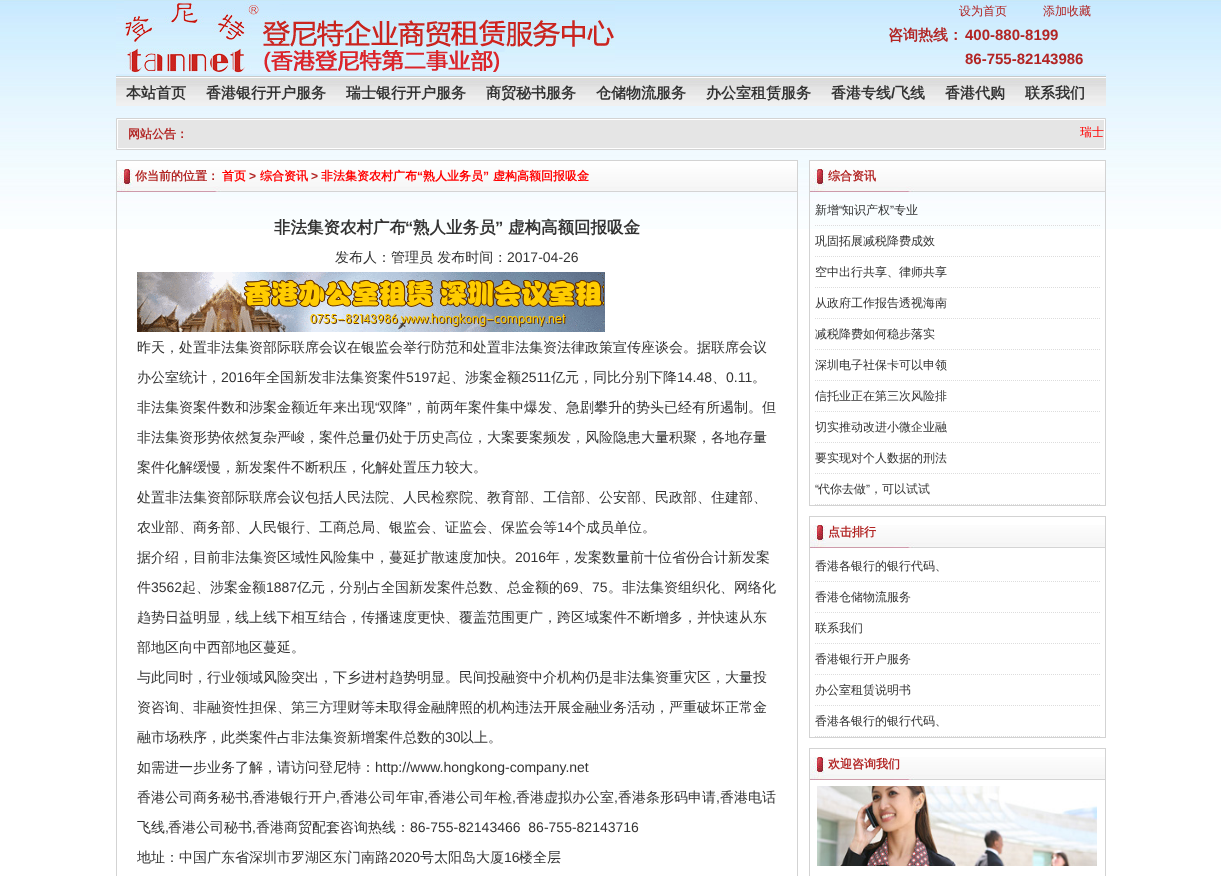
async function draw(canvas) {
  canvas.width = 1221
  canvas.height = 876
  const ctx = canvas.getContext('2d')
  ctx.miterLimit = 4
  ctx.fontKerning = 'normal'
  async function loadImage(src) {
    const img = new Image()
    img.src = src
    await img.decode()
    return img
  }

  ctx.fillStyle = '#fff'
  ctx.fillRect(0, 0, 1221, 876)
  ctx.drawImage(await loadImage('image0.png'), 0, 0, 1221, 229)
  ctx.drawImage(await loadImage('image1.png'), 116, 0, 499, 73)
  ctx.font = '500 12px WenQuanYi Zen Hei'
  ctx.fillStyle = '#b22524'
  ctx.fillText('设为首页', 959, 15)
  ctx.fillText('添加收藏', 1043, 15)
  ctx.font = 'bold 15px WenQuanYi Zen Hei'
  ctx.fillText('咨询热线：', 888, 40)
  ctx.font = 'bold 15px Liberation Sans'
  ctx.fillText('400-880-8199', 965, 40)
  ctx.fillText('86-755-82143986', 965, 64)
  ctx.drawImage(await loadImage('image2.png'), 116, 74, 990, 32)
  ctx.font = 'bold 15px WenQuanYi Zen Hei'
  ctx.fillStyle = '#333'
  ctx.fillText('本站首页', 126, 98)
  ctx.fillText('香港银行开户服务', 206, 98)
  ctx.fillText('瑞士银行开户服务', 346, 98)
  ctx.fillText('商贸秘书服务', 486, 98)
  ctx.fillText('仓储物流服务', 596, 98)
  ctx.fillText('办公室租赁服务', 706, 98)
  ctx.fillText('香港专线', 831, 98)
  ctx.font = 'bold 15px Liberation Sans'
  ctx.fillText('/', 891, 98)
  ctx.font = 'bold 15px WenQuanYi Zen Hei'
  ctx.fillText('飞线', 895, 98)
  ctx.fillText('香港代购', 945, 98)
  ctx.fillText('联系我们', 1025, 98)
  ctx.fillStyle = '#fff'
  ctx.beginPath()
  ctx.rect(116.5, 118.5, 989, 31)
  ctx.fill()
  ctx.strokeStyle = '#d3d3d3'
  ctx.stroke()
  ctx.fillStyle = '#e5e5e5'
  ctx.fillRect(118, 120, 986, 28)
  ctx.font = 'bold 12px WenQuanYi Zen Hei'
  ctx.fillStyle = '#b22524'
  ctx.fillText('网站公告：', 128, 138)
  ctx.font = '500 12px WenQuanYi Zen Hei'
  ctx.fillStyle = '#f00'
  ctx.fillText('瑞士', 1080, 136)
  ctx.strokeRect(116.5, 160.5, 681, 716)
  ctx.drawImage(await loadImage('image3.png'), 117, 161, 680, 31)
  ctx.font = 'bold 12px WenQuanYi Zen Hei'
  ctx.fillStyle = '#b22524'
  ctx.fillText('你当前的位置：', 135, 180)
  ctx.fillStyle = '#f00'
  ctx.fillText('首页', 222, 180)
  ctx.font = 'bold 12px Liberation Sans'
  ctx.fillStyle = '#b22524'
  ctx.fillText('>', 249, 180)
  ctx.font = 'bold 12px WenQuanYi Zen Hei'
  ctx.fillStyle = '#f00'
  ctx.fillText('综合资讯', 260, 180)
  ctx.font = 'bold 12px Liberation Sans'
  ctx.fillStyle = '#b22524'
  ctx.fillText('>', 311, 180)
  ctx.font = 'bold 12px WenQuanYi Zen Hei'
  ctx.fillStyle = '#f00'
  ctx.fillText('非法集资农村广布', 321, 180)
  ctx.font = 'bold 12px Liberation Sans'
  ctx.fillText('“', 417, 180)
  ctx.font = 'bold 12px WenQuanYi Zen Hei'
  ctx.fillText('熟人业务员', 423, 180)
  ctx.font = 'bold 12px Liberation Sans'
  ctx.fillText('”', 483, 180)
  ctx.font = 'bold 12px WenQuanYi Zen Hei'
  ctx.fillText('虚构高额回报吸金', 493, 180)
  ctx.font = 'bold 16.5px WenQuanYi Zen Hei'
  ctx.fillStyle = '#333'
  ctx.fillText('非法集资农村广布', 274, 233)
  ctx.font = 'bold 16.5px Liberation Sans'
  ctx.fillText('“', 405, 233)
  ctx.font = 'bold 16.5px WenQuanYi Zen Hei'
  ctx.fillText('熟人业务员', 413, 233)
  ctx.font = 'bold 16.5px Liberation Sans'
  ctx.fillText('”', 495, 233)
  ctx.font = 'bold 16.5px WenQuanYi Zen Hei'
  ctx.fillText('虚构高额回报吸金', 508, 233)
  ctx.font = '500 14px WenQuanYi Zen Hei'
  ctx.fillText('发布人：管理员 发布时间：', 335, 262)
  ctx.font = '14px Liberation Sans'
  ctx.fillText('2017-04-26', 507, 262)
  ctx.drawImage(await loadImage('image4.png'), 137, 272, 468, 60)
  ctx.font = '500 14px WenQuanYi Zen Hei'
  ctx.fillText('昨天，处置非法集资部际联席会议在银监会举行防范和处置非法集资法律政策宣传座谈会。据联席会议', 137, 352)
  ctx.fillText('办公室统计，', 137, 382)
  ctx.font = '14px Liberation Sans'
  ctx.fillText('2016', 221, 382)
  ctx.font = '500 14px WenQuanYi Zen Hei'
  ctx.fillText('年全国新发非法集资案件', 252, 382)
  ctx.font = '14px Liberation Sans'
  ctx.fillText('5197', 406, 382)
  ctx.font = '500 14px WenQuanYi Zen Hei'
  ctx.fillText('起、涉案金额', 437, 382)
  ctx.font = '14px Liberation Sans'
  ctx.fillText('2511', 521, 382)
  ctx.font = '500 14px WenQuanYi Zen Hei'
  ctx.fillText('亿元，同比分别下降', 551, 382)
  ctx.font = '14px Liberation Sans'
  ctx.fillText('14.48', 677, 382)
  ctx.font = '500 14px WenQuanYi Zen Hei'
  ctx.fillText('、', 712, 382)
  ctx.font = '14px Liberation Sans'
  ctx.fillText('0.11', 726, 382)
  ctx.font = '500 14px WenQuanYi Zen Hei'
  ctx.fillText('。', 752, 382)
  ctx.fillText('非法集资案件数和涉案金额近年来出现', 137, 412)
  ctx.font = '14px Liberation Sans'
  ctx.fillText('“', 375, 412)
  ctx.font = '500 14px WenQuanYi Zen Hei'
  ctx.fillText('双降', 379, 412)
  ctx.font = '14px Liberation Sans'
  ctx.fillText('”', 407, 412)
  ctx.font = '500 14px WenQuanYi Zen Hei'
  ctx.fillText('，前两年案件集中爆发、急剧攀升的势头已经有所遏制。但', 412, 412)
  ctx.fillText('非法集资形势依然复杂严峻，案件总量仍处于历史高位，大案要案频发，风险隐患大量积聚，各地存量', 137, 442)
  ctx.fillText('案件化解缓慢，新发案件不断积压，化解处置压力较大。', 137, 472)
  ctx.fillText('处置非法集资部际联席会议包括人民法院、人民检察院、教育部、工信部、公安部、民政部、住建部、', 137, 502)
  ctx.fillText('农业部、商务部、人民银行、工商总局、银监会、证监会、保监会等', 137, 532)
  ctx.font = '14px Liberation Sans'
  ctx.fillText('14', 557, 532)
  ctx.font = '500 14px WenQuanYi Zen Hei'
  ctx.fillText('个成员单位。', 572, 532)
  ctx.fillText('据介绍，目前非法集资区域性风险集中，蔓延扩散速度加快。', 137, 562)
  ctx.font = '14px Liberation Sans'
  ctx.fillText('2016', 515, 562)
  ctx.font = '500 14px WenQuanYi Zen Hei'
  ctx.fillText('年，发案数量前十位省份合计新发案', 546, 562)
  ctx.fillText('件', 137, 592)
  ctx.font = '14px Liberation Sans'
  ctx.fillText('3562', 151, 592)
  ctx.font = '500 14px WenQuanYi Zen Hei'
  ctx.fillText('起、涉案金额', 182, 592)
  ctx.font = '14px Liberation Sans'
  ctx.fillText('1887', 266, 592)
  ctx.font = '500 14px WenQuanYi Zen Hei'
  ctx.fillText('亿元，分别占全国新发案件总数、总金额的', 297, 592)
  ctx.font = '14px Liberation Sans'
  ctx.fillText('69', 563, 592)
  ctx.font = '500 14px WenQuanYi Zen Hei'
  ctx.fillText('、', 578, 592)
  ctx.font = '14px Liberation Sans'
  ctx.fillText('75', 592, 592)
  ctx.font = '500 14px WenQuanYi Zen Hei'
  ctx.fillText('。非法集资组织化、网络化', 608, 592)
  ctx.fillText('趋势日益明显，线上线下相互结合，传播速度更快、覆盖范围更广，跨区域案件不断增多，并快速从东', 137, 622)
  ctx.fillText('部地区向中西部地区蔓延。', 137, 652)
  ctx.fillText('与此同时，行业领域风险突出，下乡进村趋势明显。民间投融资中介机构仍是非法集资重灾区，大量投', 137, 682)
  ctx.fillText('资咨询、非融资性担保、第三方理财等未取得金融牌照的机构违法开展金融业务活动，严重破坏正常金', 137, 712)
  ctx.fillText('融市场秩序，此类案件占非法集资新增案件总数的', 137, 742)
  ctx.font = '14px Liberation Sans'
  ctx.fillText('30', 445, 742)
  ctx.font = '500 14px WenQuanYi Zen Hei'
  ctx.fillText('以上。', 460, 742)
  ctx.fillText('如需进一步业务了解，请访问登尼特：', 137, 772)
  ctx.font = '14px Liberation Sans'
  ctx.fillText('http://www.hongkong-company.net', 375, 772)
  ctx.font = '500 14px WenQuanYi Zen Hei'
  ctx.fillText('香港公司商务秘书', 137, 802)
  ctx.font = '14px Liberation Sans'
  ctx.fillText(',', 249, 802)
  ctx.font = '500 14px WenQuanYi Zen Hei'
  ctx.fillText('香港银行开户', 252, 802)
  ctx.font = '14px Liberation Sans'
  ctx.fillText(',', 336, 802)
  ctx.font = '500 14px WenQuanYi Zen Hei'
  ctx.fillText('香港公司年审', 340, 802)
  ctx.font = '14px Liberation Sans'
  ctx.fillText(',', 424, 802)
  ctx.font = '500 14px WenQuanYi Zen Hei'
  ctx.fillText('香港公司年检', 428, 802)
  ctx.font = '14px Liberation Sans'
  ctx.fillText(',', 512, 802)
  ctx.font = '500 14px WenQuanYi Zen Hei'
  ctx.fillText('香港虚拟办公室', 516, 802)
  ctx.font = '14px Liberation Sans'
  ctx.fillText(',', 614, 802)
  ctx.font = '500 14px WenQuanYi Zen Hei'
  ctx.fillText('香港条形码申请', 618, 802)
  ctx.font = '14px Liberation Sans'
  ctx.fillText(',', 716, 802)
  ctx.font = '500 14px WenQuanYi Zen Hei'
  ctx.fillText('香港电话', 720, 802)
  ctx.fillText('飞线', 137, 832)
  ctx.font = '14px Liberation Sans'
  ctx.fillText(',', 165, 832)
  ctx.font = '500 14px WenQuanYi Zen Hei'
  ctx.fillText('香港公司秘书', 168, 832)
  ctx.font = '14px Liberation Sans'
  ctx.fillText(',', 252, 832)
  ctx.font = '500 14px WenQuanYi Zen Hei'
  ctx.fillText('香港商贸配套咨询热线：', 256, 832)
  ctx.font = '14px Liberation Sans'
  ctx.fillText('86-755-82143466  86-755-82143716', 410, 832)
  ctx.font = '500 14px WenQuanYi Zen Hei'
  ctx.fillText('地址：中国广东省深圳市罗湖区东门南路', 137, 862)
  ctx.font = '14px Liberation Sans'
  ctx.fillText('2020', 389, 862)
  ctx.font = '500 14px WenQuanYi Zen Hei'
  ctx.fillText('号太阳岛大厦', 420, 862)
  ctx.font = '14px Liberation Sans'
  ctx.fillText('16', 504, 862)
  ctx.font = '500 14px WenQuanYi Zen Hei'
  ctx.fillText('楼全层', 519, 862)
  ctx.strokeRect(809.5, 160.5, 296, 345)
  ctx.drawImage(await loadImage('image5.png'), 810, 161, 295, 31)
  ctx.font = 'bold 12px WenQuanYi Zen Hei'
  ctx.fillStyle = '#b22524'
  ctx.fillText('综合资讯', 828, 180)
  ctx.beginPath()
  ctx.moveTo(815, 225.5)
  ctx.lineTo(1100, 225.5)
  ctx.strokeStyle = '#ddd'
  ctx.setLineDash([1, 1])
  ctx.stroke()
  ctx.font = '500 12px WenQuanYi Zen Hei'
  ctx.fillStyle = '#333'
  ctx.fillText('新增', 815, 214)
  ctx.font = '12px Liberation Sans'
  ctx.fillText('“', 839, 214)
  ctx.font = '500 12px WenQuanYi Zen Hei'
  ctx.fillText('知识产权', 842, 214)
  ctx.font = '12px Liberation Sans'
  ctx.fillText('”', 890, 214)
  ctx.font = '500 12px WenQuanYi Zen Hei'
  ctx.fillText('专业', 894, 214)
  ctx.beginPath()
  ctx.moveTo(815, 256.5)
  ctx.lineTo(1100, 256.5)
  ctx.stroke()
  ctx.fillText('巩固拓展减税降费成效', 815, 245)
  ctx.beginPath()
  ctx.moveTo(815, 287.5)
  ctx.lineTo(1100, 287.5)
  ctx.stroke()
  ctx.fillText('空中出行共享、律师共享', 815, 276)
  ctx.beginPath()
  ctx.moveTo(815, 318.5)
  ctx.lineTo(1100, 318.5)
  ctx.stroke()
  ctx.fillText('从政府工作报告透视海南', 815, 307)
  ctx.beginPath()
  ctx.moveTo(815, 349.5)
  ctx.lineTo(1100, 349.5)
  ctx.stroke()
  ctx.fillText('减税降费如何稳步落实', 815, 338)
  ctx.beginPath()
  ctx.moveTo(815, 380.5)
  ctx.lineTo(1100, 380.5)
  ctx.stroke()
  ctx.fillText('深圳电子社保卡可以申领', 815, 369)
  ctx.beginPath()
  ctx.moveTo(815, 411.5)
  ctx.lineTo(1100, 411.5)
  ctx.stroke()
  ctx.fillText('信托业正在第三次风险排', 815, 400)
  ctx.beginPath()
  ctx.moveTo(815, 442.5)
  ctx.lineTo(1100, 442.5)
  ctx.stroke()
  ctx.fillText('切实推动改进小微企业融', 815, 431)
  ctx.beginPath()
  ctx.moveTo(815, 473.5)
  ctx.lineTo(1100, 473.5)
  ctx.stroke()
  ctx.fillText('要实现对个人数据的刑法', 815, 462)
  ctx.beginPath()
  ctx.moveTo(815, 504.5)
  ctx.lineTo(1100, 504.5)
  ctx.stroke()
  ctx.font = '12px Liberation Sans'
  ctx.fillText('“', 815, 493)
  ctx.font = '500 12px WenQuanYi Zen Hei'
  ctx.fillText('代你去做', 818, 493)
  ctx.font = '12px Liberation Sans'
  ctx.fillText('”', 866, 493)
  ctx.font = '500 12px WenQuanYi Zen Hei'
  ctx.fillText('，可以试试', 870, 493)
  ctx.strokeStyle = '#d3d3d3'
  ctx.setLineDash([])
  ctx.strokeRect(809.5, 516.5, 296, 221)
  ctx.drawImage(await loadImage('image6.png'), 810, 525, 295, 23)
  ctx.font = 'bold 12px WenQuanYi Zen Hei'
  ctx.fillStyle = '#b22524'
  ctx.fillText('点击排行', 828, 536)
  ctx.beginPath()
  ctx.moveTo(815, 581.5)
  ctx.lineTo(1100, 581.5)
  ctx.strokeStyle = '#ddd'
  ctx.setLineDash([1, 1])
  ctx.stroke()
  ctx.font = '500 12px WenQuanYi Zen Hei'
  ctx.fillStyle = '#333'
  ctx.fillText('香港各银行的银行代码、', 815, 570)
  ctx.beginPath()
  ctx.moveTo(815, 612.5)
  ctx.lineTo(1100, 612.5)
  ctx.stroke()
  ctx.fillText('香港仓储物流服务', 815, 601)
  ctx.beginPath()
  ctx.moveTo(815, 643.5)
  ctx.lineTo(1100, 643.5)
  ctx.stroke()
  ctx.fillText('联系我们', 815, 632)
  ctx.beginPath()
  ctx.moveTo(815, 674.5)
  ctx.lineTo(1100, 674.5)
  ctx.stroke()
  ctx.fillText('香港银行开户服务', 815, 663)
  ctx.beginPath()
  ctx.moveTo(815, 705.5)
  ctx.lineTo(1100, 705.5)
  ctx.stroke()
  ctx.fillText('办公室租赁说明书', 815, 694)
  ctx.beginPath()
  ctx.moveTo(815, 736.5)
  ctx.lineTo(1100, 736.5)
  ctx.stroke()
  ctx.fillText('香港各银行的银行代码、', 815, 725)
  ctx.strokeStyle = '#d3d3d3'
  ctx.setLineDash([])
  ctx.strokeRect(809.5, 748.5, 296, 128)
  ctx.drawImage(await loadImage('image6.png'), 810, 757, 295, 23)
  ctx.font = 'bold 12px WenQuanYi Zen Hei'
  ctx.fillStyle = '#b22524'
  ctx.fillText('欢迎咨询我们', 828, 768)
  ctx.drawImage(await loadImage('image7.png'), 817, 786, 280, 80)
}

draw(document.querySelector('canvas'))
